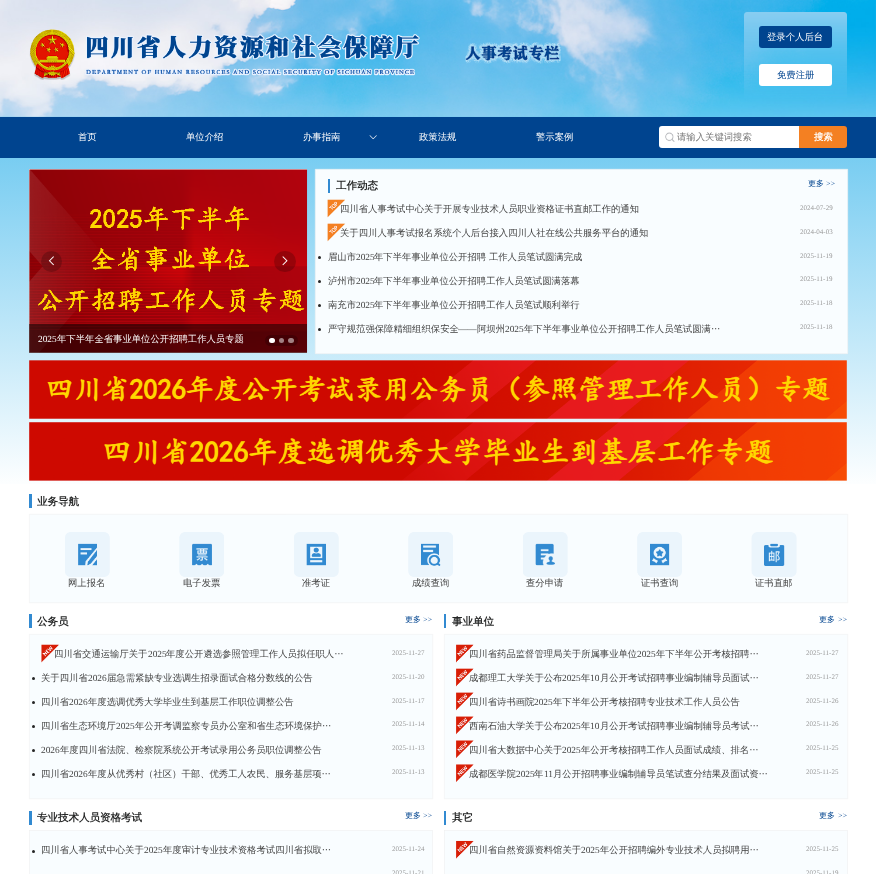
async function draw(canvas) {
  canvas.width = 876
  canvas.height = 874
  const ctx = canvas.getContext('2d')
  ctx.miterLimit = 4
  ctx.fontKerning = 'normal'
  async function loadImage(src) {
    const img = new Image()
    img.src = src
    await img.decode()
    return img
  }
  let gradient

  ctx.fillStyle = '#fff'
  ctx.fillRect(0, 0, 876, 874)
  gradient = ctx.createLinearGradient(0, 0, 0, 490)
  gradient.addColorStop(0, '#39b5eb')
  gradient.addColorStop(1, '#fff')
  ctx.fillStyle = gradient
  ctx.fillRect(0, 116, 876, 368)
  ctx.drawImage(await loadImage('image0.png'), 0, 0, 876, 117)
  ctx.drawImage(await loadImage('image1.png'), 29, 29, 391, 51)
  ctx.drawImage(await loadImage('image2.png'), 465, 42, 96, 22)
  ctx.fillStyle = '#00448f'
  ctx.beginPath()
  ctx.roundRect(759, 26, 73, 22, 3)
  ctx.fill()
  ctx.font = '500 9.35px WenQuanYi Zen Hei'
  ctx.fillStyle = '#fff'
  ctx.fillText('登录个人后台', 767, 40)
  ctx.beginPath()
  ctx.roundRect(759, 64, 73, 22, 3)
  ctx.fill()
  ctx.fillStyle = '#00448f'
  ctx.fillText('免费注册', 777, 78)
  ctx.fillRect(0, 117, 876, 41)
  ctx.fillStyle = '#fff'
  ctx.fillText('首页', 78, 140)
  ctx.fillText('单位介绍', 186, 140)
  ctx.fillText('办事指南', 303, 140)
  ctx.drawImage(await loadImage('image3.png'), 369, 135, 8, 5)
  ctx.fillText('政策法规', 419, 140)
  ctx.fillText('警示案例', 536, 140)
  ctx.beginPath()
  ctx.roundRect(659, 126, 140, 22, [3, 0, 0, 3])
  ctx.fill()
  ctx.drawImage(await loadImage('image4.png'), 665, 132, 10, 10)
  ctx.fillStyle = '#757575'
  ctx.fillText('请输入关键词搜索', 677, 140)
  ctx.fillStyle = '#f48022'
  ctx.beginPath()
  ctx.roundRect(799, 126, 48, 22, [0, 3, 3, 0])
  ctx.fill()
  ctx.font = 'bold 9.35px WenQuanYi Zen Hei'
  ctx.fillStyle = '#fff'
  ctx.fillText('搜索', 814, 140)
  ctx.fillStyle = '#f9fdff'
  ctx.beginPath()
  ctx.rect(315.3, 169.3, 532.4, 184.4)
  ctx.fill()
  ctx.strokeStyle = '#f0f0f0'
  ctx.lineWidth = 0.6
  ctx.stroke()
  ctx.fillStyle = '#328ad1'
  ctx.fillRect(328, 179, 2, 14)
  ctx.font = 'bold 10.5px WenQuanYi Zen Hei'
  ctx.fillStyle = '#252626'
  ctx.fillText('工作动态', 336, 189)
  ctx.font = '500 8px WenQuanYi Zen Hei'
  ctx.fillStyle = '#00448f'
  ctx.fillText('更多', 808, 186)
  ctx.font = '8px Liberation Serif'
  ctx.fillText('>>', 826, 186)
  ctx.drawImage(await loadImage('image5.png'), 327, 199, 18, 19)
  ctx.font = '500 9.35px WenQuanYi Zen Hei'
  ctx.fillStyle = '#424242'
  ctx.fillText('四川省人事考试中心关于开展专业技术人员职业资格证书直邮工作的通知', 340, 212)
  ctx.font = '7px Liberation Serif'
  ctx.fillStyle = '#999'
  ctx.fillText('2024-07-29', 800, 210)
  ctx.drawImage(await loadImage('image6.png'), 327, 223, 19, 19)
  ctx.font = '500 9.35px WenQuanYi Zen Hei'
  ctx.fillStyle = '#424242'
  ctx.fillText('关于四川人事考试报名系统个人后台接入四川人社在线公共服务平台的通知', 340, 236)
  ctx.font = '7px Liberation Serif'
  ctx.fillStyle = '#999'
  ctx.fillText('2024-04-03', 800, 234)
  ctx.fillStyle = '#252626'
  ctx.beginPath()
  ctx.arc(319.5, 257.5, 1.5, 0, 2 * Math.PI)
  ctx.fill()
  ctx.font = '500 9.35px WenQuanYi Zen Hei'
  ctx.fillStyle = '#424242'
  ctx.fillText('眉山市', 328, 260)
  ctx.font = '9.35px Liberation Serif'
  ctx.fillText('2025', 356, 260)
  ctx.font = '500 9.35px WenQuanYi Zen Hei'
  ctx.fillText('年下半年事业单位公开招聘 工作人员笔试圆满完成', 374, 260)
  ctx.font = '7px Liberation Serif'
  ctx.fillStyle = '#999'
  ctx.fillText('2025-11-19', 800, 258)
  ctx.fillStyle = '#252626'
  ctx.beginPath()
  ctx.arc(319.5, 281.5, 1.5, 0, 2 * Math.PI)
  ctx.fill()
  ctx.font = '500 9.35px WenQuanYi Zen Hei'
  ctx.fillStyle = '#424242'
  ctx.fillText('泸州市', 328, 284)
  ctx.font = '9.35px Liberation Serif'
  ctx.fillText('2025', 356, 284)
  ctx.font = '500 9.35px WenQuanYi Zen Hei'
  ctx.fillText('年下半年事业单位公开招聘工作人员笔试圆满落幕', 374, 284)
  ctx.font = '7px Liberation Serif'
  ctx.fillStyle = '#999'
  ctx.fillText('2025-11-19', 800, 281)
  ctx.fillStyle = '#252626'
  ctx.beginPath()
  ctx.arc(319.5, 305.5, 1.5, 0, 2 * Math.PI)
  ctx.fill()
  ctx.font = '500 9.35px WenQuanYi Zen Hei'
  ctx.fillStyle = '#424242'
  ctx.fillText('南充市', 328, 308)
  ctx.font = '9.35px Liberation Serif'
  ctx.fillText('2025', 356, 308)
  ctx.font = '500 9.35px WenQuanYi Zen Hei'
  ctx.fillText('年下半年事业单位公开招聘工作人员笔试顺利举行', 374, 308)
  ctx.font = '7px Liberation Serif'
  ctx.fillStyle = '#999'
  ctx.fillText('2025-11-18', 800, 305)
  ctx.fillStyle = '#252626'
  ctx.beginPath()
  ctx.arc(319.5, 329.5, 1.5, 0, 2 * Math.PI)
  ctx.fill()
  ctx.font = '500 9.35px WenQuanYi Zen Hei'
  ctx.fillStyle = '#424242'
  ctx.fillText('严守规范强保障精细组织保安全', 328, 332)
  ctx.font = '9.35px Liberation Serif'
  ctx.fillText('——', 458, 332)
  ctx.font = '500 9.35px WenQuanYi Zen Hei'
  ctx.fillText('阿坝州', 477, 332)
  ctx.font = '9.35px Liberation Serif'
  ctx.fillText('2025', 505, 332)
  ctx.font = '500 9.35px WenQuanYi Zen Hei'
  ctx.fillText('年下半年事业单位公开招聘工作人员笔试圆满…', 524, 332)
  ctx.font = '7px Liberation Serif'
  ctx.fillStyle = '#999'
  ctx.fillText('2025-11-18', 800, 329)
  ctx.fillStyle = '#f8f8f8'
  ctx.fillRect(29, 169, 278, 184)
  ctx.drawImage(await loadImage('image9.png'), 29, 169, 279, 184)
  ctx.fillStyle = '#00000033'
  ctx.beginPath()
  ctx.arc(51.5, 261.5, 10.5, 0, 2 * Math.PI)
  ctx.fill()
  ctx.drawImage(await loadImage('image7.png'), 48, 256, 6, 10)
  ctx.beginPath()
  ctx.roundRect(274, 251, 22, 21, 10.5)
  ctx.fill()
  ctx.drawImage(await loadImage('image8.png'), 282, 256, 6, 10)
  ctx.fillStyle = '#00000080'
  ctx.fillRect(29, 324, 278, 29)
  ctx.font = '9.35px Liberation Serif'
  ctx.fillStyle = '#fff'
  ctx.fillText('2025', 38, 342)
  ctx.font = '500 9.35px WenQuanYi Zen Hei'
  ctx.fillText('年下半年全省事业单位公开招聘工作人员专题', 57, 342)
  ctx.fillStyle = '#00000033'
  ctx.beginPath()
  ctx.roundRect(265, 335, 33, 11, 5.5)
  ctx.fill()
  ctx.fillStyle = '#fff'
  ctx.beginPath()
  ctx.roundRect(269, 338, 6, 5, 2.5)
  ctx.fill()
  ctx.fillStyle = '#a28082'
  ctx.beginPath()
  ctx.arc(281.5, 340.5, 2.5, 0, 2 * Math.PI)
  ctx.fill()
  ctx.beginPath()
  ctx.roundRect(288, 338, 6, 5, 2.5)
  ctx.fill()
  ctx.drawImage(await loadImage('image10.png'), 29, 360, 818, 59)
  ctx.drawImage(await loadImage('image11.png'), 29, 422, 818, 59)
  ctx.fillStyle = '#328ad1'
  ctx.fillRect(29, 494, 3, 14)
  ctx.font = 'bold 10.5px WenQuanYi Zen Hei'
  ctx.fillStyle = '#252626'
  ctx.fillText('业务导航', 37, 505)
  ctx.fillStyle = '#f9fdff'
  ctx.beginPath()
  ctx.rect(29.3, 514.3, 818.4, 88.4)
  ctx.fill()
  ctx.stroke()
  ctx.drawImage(await loadImage('image12.png'), 65, 532, 45, 45)
  ctx.font = '500 9.35px WenQuanYi Zen Hei'
  ctx.fillStyle = '#424242'
  ctx.fillText('网上报名', 68, 586)
  ctx.drawImage(await loadImage('image13.png'), 179, 532, 45, 45)
  ctx.fillText('电子发票', 183, 586)
  ctx.drawImage(await loadImage('image14.png'), 294, 532, 45, 45)
  ctx.fillText('准考证', 302, 586)
  ctx.drawImage(await loadImage('image15.png'), 408, 532, 45, 45)
  ctx.fillText('成绩查询', 412, 586)
  ctx.drawImage(await loadImage('image16.png'), 523, 532, 45, 45)
  ctx.fillText('查分申请', 526, 586)
  ctx.drawImage(await loadImage('image17.png'), 637, 532, 45, 45)
  ctx.fillText('证书查询', 641, 586)
  ctx.drawImage(await loadImage('image18.png'), 751, 532, 46, 45)
  ctx.fillText('证书直邮', 755, 586)
  ctx.fillStyle = '#328ad1'
  ctx.fillRect(29, 614, 3, 14)
  ctx.font = 'bold 10.5px WenQuanYi Zen Hei'
  ctx.fillStyle = '#252626'
  ctx.fillText('公务员', 37, 625)
  ctx.font = '500 8px WenQuanYi Zen Hei'
  ctx.fillStyle = '#00448f'
  ctx.fillText('更多', 405, 622)
  ctx.font = '8px Liberation Serif'
  ctx.fillText('>>', 423, 622)
  ctx.fillStyle = '#f9fdff'
  ctx.beginPath()
  ctx.rect(29.3, 634.3, 403.4, 164.4)
  ctx.fill()
  ctx.stroke()
  ctx.drawImage(await loadImage('image19.png'), 41, 644, 18, 19)
  ctx.font = '500 9.35px WenQuanYi Zen Hei'
  ctx.fillStyle = '#424242'
  ctx.fillText('四川省交通运输厅关于', 54, 657)
  ctx.font = '9.35px Liberation Serif'
  ctx.fillText('2025', 148, 657)
  ctx.font = '500 9.35px WenQuanYi Zen Hei'
  ctx.fillText('年度公开遴选参照管理工作人员拟任职人…', 166, 657)
  ctx.font = '7px Liberation Serif'
  ctx.fillStyle = '#999'
  ctx.fillText('2025-11-27', 392, 655)
  ctx.fillStyle = '#252626'
  ctx.beginPath()
  ctx.arc(33.5, 678.5, 1.5, 0, 2 * Math.PI)
  ctx.fill()
  ctx.font = '500 9.35px WenQuanYi Zen Hei'
  ctx.fillStyle = '#424242'
  ctx.fillText('关于四川省', 41, 681)
  ctx.font = '9.35px Liberation Serif'
  ctx.fillText('2026', 88, 681)
  ctx.font = '500 9.35px WenQuanYi Zen Hei'
  ctx.fillText('届急需紧缺专业选调生招录面试合格分数线的公告', 107, 681)
  ctx.font = '7px Liberation Serif'
  ctx.fillStyle = '#999'
  ctx.fillText('2025-11-20', 392, 679)
  ctx.fillStyle = '#252626'
  ctx.beginPath()
  ctx.arc(33.5, 702.5, 1.5, 0, 2 * Math.PI)
  ctx.fill()
  ctx.font = '500 9.35px WenQuanYi Zen Hei'
  ctx.fillStyle = '#424242'
  ctx.fillText('四川省', 41, 705)
  ctx.font = '9.35px Liberation Serif'
  ctx.fillText('2026', 69, 705)
  ctx.font = '500 9.35px WenQuanYi Zen Hei'
  ctx.fillText('年度选调优秀大学毕业生到基层工作职位调整公告', 88, 705)
  ctx.font = '7px Liberation Serif'
  ctx.fillStyle = '#999'
  ctx.fillText('2025-11-17', 392, 703)
  ctx.fillStyle = '#252626'
  ctx.beginPath()
  ctx.arc(33.5, 726.5, 1.5, 0, 2 * Math.PI)
  ctx.fill()
  ctx.font = '500 9.35px WenQuanYi Zen Hei'
  ctx.fillStyle = '#424242'
  ctx.fillText('四川省生态环境厅', 41, 729)
  ctx.font = '9.35px Liberation Serif'
  ctx.fillText('2025', 116, 729)
  ctx.font = '500 9.35px WenQuanYi Zen Hei'
  ctx.fillText('年公开考调监察专员办公室和省生态环境保护…', 135, 729)
  ctx.font = '7px Liberation Serif'
  ctx.fillStyle = '#999'
  ctx.fillText('2025-11-14', 392, 726)
  ctx.fillStyle = '#252626'
  ctx.beginPath()
  ctx.arc(33.5, 750.5, 1.5, 0, 2 * Math.PI)
  ctx.fill()
  ctx.font = '9.35px Liberation Serif'
  ctx.fillStyle = '#424242'
  ctx.fillText('2026', 41, 753)
  ctx.font = '500 9.35px WenQuanYi Zen Hei'
  ctx.fillText('年度四川省法院、检察院系统公开考试录用公务员职位调整公告', 60, 753)
  ctx.font = '7px Liberation Serif'
  ctx.fillStyle = '#999'
  ctx.fillText('2025-11-13', 392, 750)
  ctx.fillStyle = '#252626'
  ctx.beginPath()
  ctx.arc(33.5, 774.5, 1.5, 0, 2 * Math.PI)
  ctx.fill()
  ctx.font = '500 9.35px WenQuanYi Zen Hei'
  ctx.fillStyle = '#424242'
  ctx.fillText('四川省', 41, 777)
  ctx.font = '9.35px Liberation Serif'
  ctx.fillText('2026', 69, 777)
  ctx.font = '500 9.35px WenQuanYi Zen Hei'
  ctx.fillText('年度从优秀村（社区）干部、优秀工人农民、服务基层项…', 88, 777)
  ctx.font = '7px Liberation Serif'
  ctx.fillStyle = '#999'
  ctx.fillText('2025-11-13', 392, 774)
  ctx.fillStyle = '#328ad1'
  ctx.fillRect(444, 614, 2, 14)
  ctx.font = 'bold 10.5px WenQuanYi Zen Hei'
  ctx.fillStyle = '#252626'
  ctx.fillText('事业单位', 452, 625)
  ctx.font = '500 8px WenQuanYi Zen Hei'
  ctx.fillStyle = '#00448f'
  ctx.fillText('更多', 819, 622)
  ctx.font = '8px Liberation Serif'
  ctx.fillText('>>', 838, 622)
  ctx.fillStyle = '#f9fdff'
  ctx.beginPath()
  ctx.rect(444.3, 634.3, 403.4, 164.4)
  ctx.fill()
  ctx.stroke()
  ctx.drawImage(await loadImage('image20.png'), 456, 644, 18, 19)
  ctx.font = '500 9.35px WenQuanYi Zen Hei'
  ctx.fillStyle = '#424242'
  ctx.fillText('四川省药品监督管理局关于所属事业单位', 469, 657)
  ctx.font = '9.35px Liberation Serif'
  ctx.fillText('2025', 637, 657)
  ctx.font = '500 9.35px WenQuanYi Zen Hei'
  ctx.fillText('年下半年公开考核招聘…', 656, 657)
  ctx.font = '7px Liberation Serif'
  ctx.fillStyle = '#999'
  ctx.fillText('2025-11-27', 806, 655)
  ctx.drawImage(await loadImage('image21.png'), 456, 668, 18, 19)
  ctx.font = '500 9.35px WenQuanYi Zen Hei'
  ctx.fillStyle = '#424242'
  ctx.fillText('成都理工大学关于公布', 469, 681)
  ctx.font = '9.35px Liberation Serif'
  ctx.fillText('2025', 562, 681)
  ctx.font = '500 9.35px WenQuanYi Zen Hei'
  ctx.fillText('年', 581, 681)
  ctx.font = '9.35px Liberation Serif'
  ctx.fillText('10', 590, 681)
  ctx.font = '500 9.35px WenQuanYi Zen Hei'
  ctx.fillText('月公开考试招聘事业编制辅导员面试…', 600, 681)
  ctx.font = '7px Liberation Serif'
  ctx.fillStyle = '#999'
  ctx.fillText('2025-11-27', 806, 679)
  ctx.drawImage(await loadImage('image22.png'), 456, 692, 18, 19)
  ctx.font = '500 9.35px WenQuanYi Zen Hei'
  ctx.fillStyle = '#424242'
  ctx.fillText('四川省诗书画院', 469, 705)
  ctx.font = '9.35px Liberation Serif'
  ctx.fillText('2025', 534, 705)
  ctx.font = '500 9.35px WenQuanYi Zen Hei'
  ctx.fillText('年下半年公开考核招聘专业技术工作人员公告', 553, 705)
  ctx.font = '7px Liberation Serif'
  ctx.fillStyle = '#999'
  ctx.fillText('2025-11-26', 806, 703)
  ctx.drawImage(await loadImage('image23.png'), 456, 716, 18, 19)
  ctx.font = '500 9.35px WenQuanYi Zen Hei'
  ctx.fillStyle = '#424242'
  ctx.fillText('西南石油大学关于公布', 469, 729)
  ctx.font = '9.35px Liberation Serif'
  ctx.fillText('2025', 562, 729)
  ctx.font = '500 9.35px WenQuanYi Zen Hei'
  ctx.fillText('年', 581, 729)
  ctx.font = '9.35px Liberation Serif'
  ctx.fillText('10', 590, 729)
  ctx.font = '500 9.35px WenQuanYi Zen Hei'
  ctx.fillText('月公开考试招聘事业编制辅导员考试…', 600, 729)
  ctx.font = '7px Liberation Serif'
  ctx.fillStyle = '#999'
  ctx.fillText('2025-11-26', 806, 726)
  ctx.drawImage(await loadImage('image24.png'), 456, 740, 18, 18)
  ctx.font = '500 9.35px WenQuanYi Zen Hei'
  ctx.fillStyle = '#424242'
  ctx.fillText('四川省大数据中心关于', 469, 753)
  ctx.font = '9.35px Liberation Serif'
  ctx.fillText('2025', 562, 753)
  ctx.font = '500 9.35px WenQuanYi Zen Hei'
  ctx.fillText('年公开考核招聘工作人员面试成绩、排名…', 581, 753)
  ctx.font = '7px Liberation Serif'
  ctx.fillStyle = '#999'
  ctx.fillText('2025-11-25', 806, 750)
  ctx.drawImage(await loadImage('image25.png'), 456, 764, 18, 18)
  ctx.font = '500 9.35px WenQuanYi Zen Hei'
  ctx.fillStyle = '#424242'
  ctx.fillText('成都医学院', 469, 777)
  ctx.font = '9.35px Liberation Serif'
  ctx.fillText('2025', 516, 777)
  ctx.font = '500 9.35px WenQuanYi Zen Hei'
  ctx.fillText('年', 534, 777)
  ctx.font = '9.35px Liberation Serif'
  ctx.fillText('11', 544, 777)
  ctx.font = '500 9.35px WenQuanYi Zen Hei'
  ctx.fillText('月公开招聘事业编制辅导员笔试查分结果及面试资…', 553, 777)
  ctx.font = '7px Liberation Serif'
  ctx.fillStyle = '#999'
  ctx.fillText('2025-11-25', 806, 774)
  ctx.fillStyle = '#328ad1'
  ctx.fillRect(29, 811, 3, 14)
  ctx.font = 'bold 10.5px WenQuanYi Zen Hei'
  ctx.fillStyle = '#252626'
  ctx.fillText('专业技术人员资格考试', 37, 821)
  ctx.font = '500 8px WenQuanYi Zen Hei'
  ctx.fillStyle = '#00448f'
  ctx.fillText('更多', 405, 818)
  ctx.font = '8px Liberation Serif'
  ctx.fillText('>>', 423, 818)
  ctx.fillStyle = '#f9fdff'
  ctx.fillRect(29, 830, 404, 44)
  ctx.strokeRect(29.3, 830.3, 403.4, 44.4)
  ctx.fillStyle = '#252626'
  ctx.beginPath()
  ctx.arc(33.5, 851.5, 1.5, 0, 2 * Math.PI)
  ctx.fill()
  ctx.font = '500 9.35px WenQuanYi Zen Hei'
  ctx.fillStyle = '#424242'
  ctx.fillText('四川省人事考试中心关于', 41, 853)
  ctx.font = '9.35px Liberation Serif'
  ctx.fillText('2025', 144, 853)
  ctx.font = '500 9.35px WenQuanYi Zen Hei'
  ctx.fillText('年度审计专业技术资格考试四川省拟取…', 163, 853)
  ctx.font = '7px Liberation Serif'
  ctx.fillStyle = '#999'
  ctx.fillText('2025-11-24', 392, 851)
  ctx.fillText('2025-11-21', 392, 875)
  ctx.fillStyle = '#328ad1'
  ctx.fillRect(444, 811, 2, 14)
  ctx.font = 'bold 10.5px WenQuanYi Zen Hei'
  ctx.fillStyle = '#252626'
  ctx.fillText('其它', 452, 821)
  ctx.font = '500 8px WenQuanYi Zen Hei'
  ctx.fillStyle = '#00448f'
  ctx.fillText('更多', 819, 818)
  ctx.font = '8px Liberation Serif'
  ctx.fillText('>>', 838, 818)
  ctx.fillStyle = '#f9fdff'
  ctx.fillRect(444, 830, 404, 44)
  ctx.strokeRect(444.3, 830.3, 403.4, 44.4)
  ctx.drawImage(await loadImage('image26.png'), 456, 840, 18, 19)
  ctx.font = '500 9.35px WenQuanYi Zen Hei'
  ctx.fillStyle = '#424242'
  ctx.fillText('四川省自然资源资料馆关于', 469, 853)
  ctx.font = '9.35px Liberation Serif'
  ctx.fillText('2025', 581, 853)
  ctx.font = '500 9.35px WenQuanYi Zen Hei'
  ctx.fillText('年公开招聘编外专业技术人员拟聘用…', 600, 853)
  ctx.font = '7px Liberation Serif'
  ctx.fillStyle = '#999'
  ctx.fillText('2025-11-25', 806, 851)
  ctx.fillText('2025-11-19', 806, 875)
}

draw(document.querySelector('canvas'))
